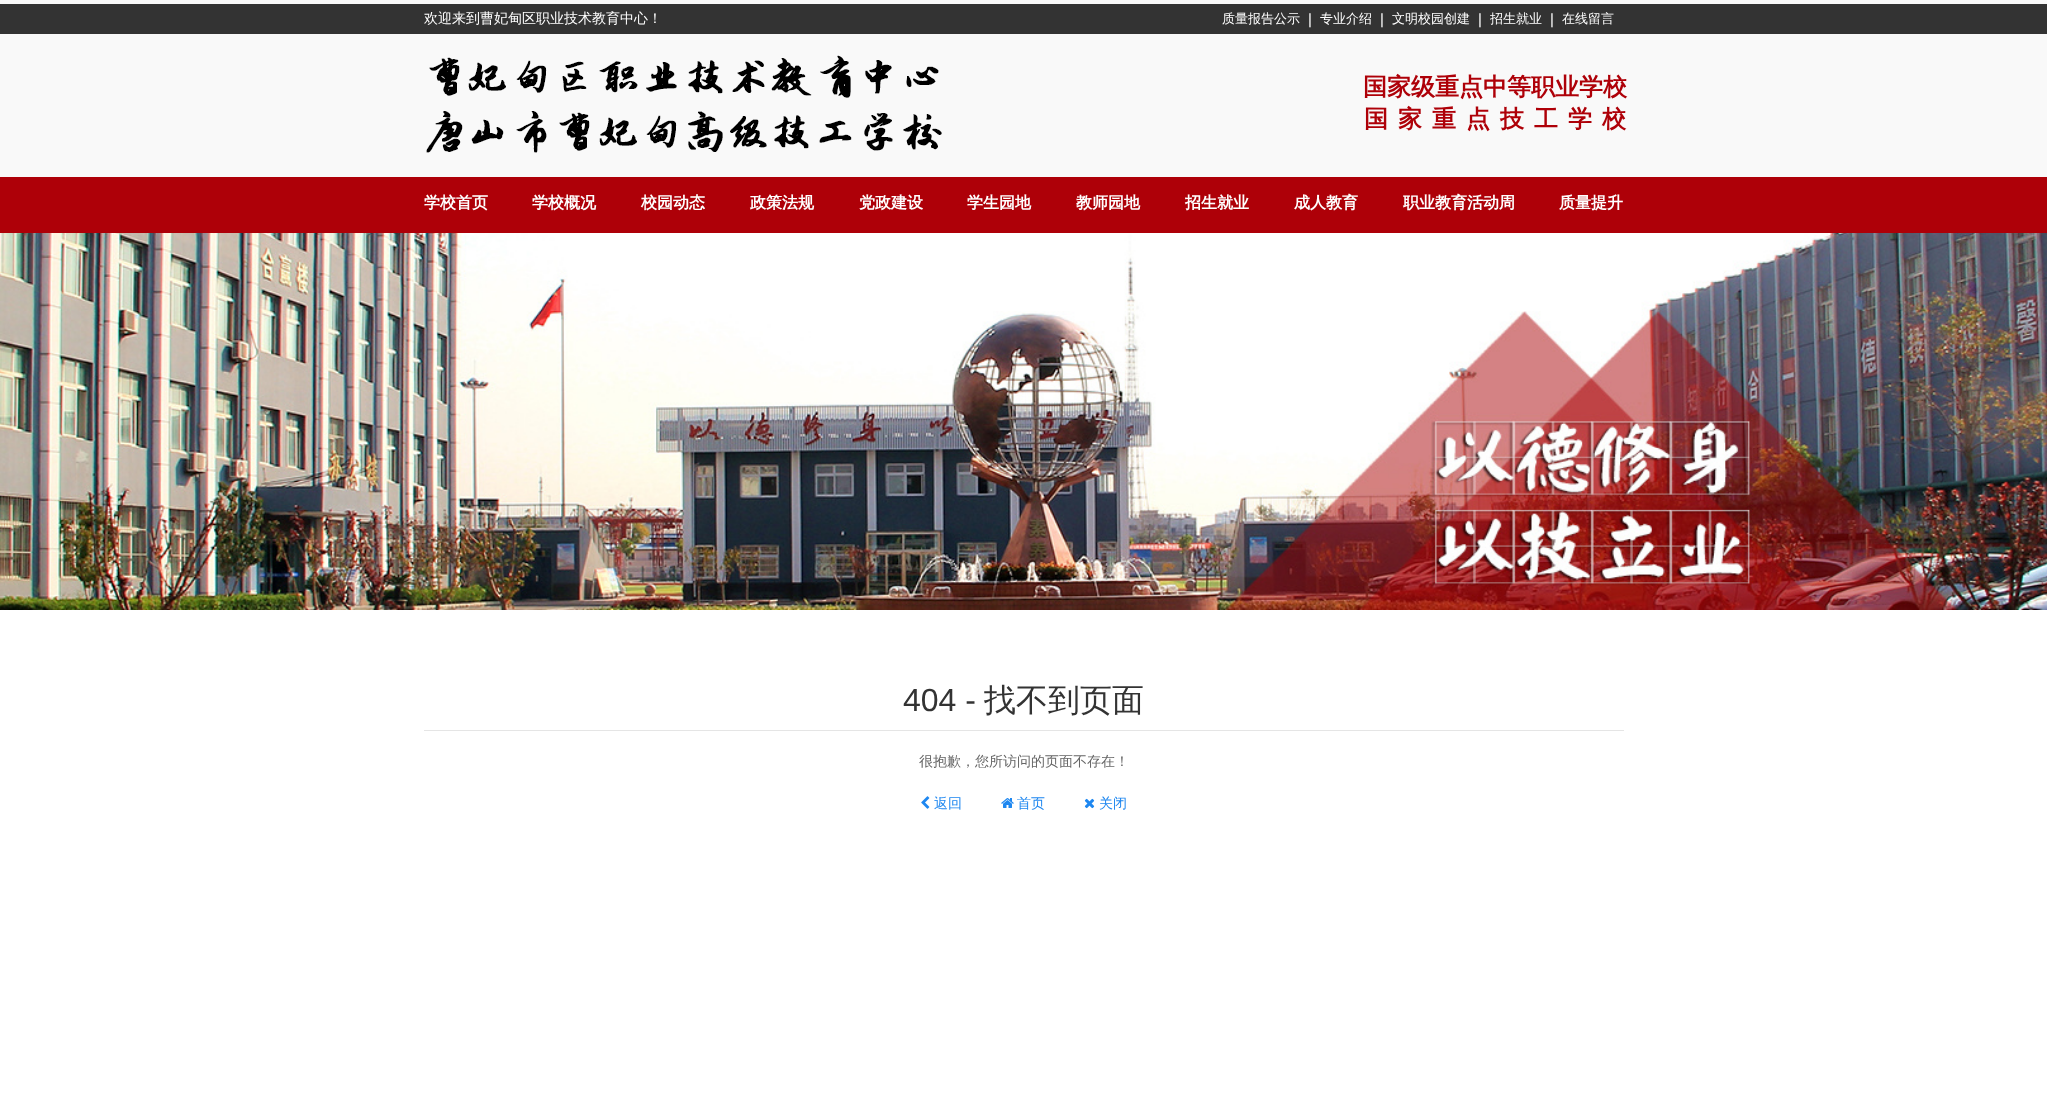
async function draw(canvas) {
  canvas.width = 2047
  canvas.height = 1107
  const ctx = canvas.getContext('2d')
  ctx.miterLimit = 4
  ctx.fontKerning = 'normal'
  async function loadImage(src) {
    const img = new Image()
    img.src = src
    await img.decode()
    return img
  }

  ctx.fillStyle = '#fff'
  ctx.fillRect(0, 0, 2047, 1107)
  ctx.fillStyle = '#f9f9f9'
  ctx.fillRect(0, 0, 2047, 177)
  ctx.fillStyle = '#333'
  ctx.fillRect(0, 4, 2047, 30)
  ctx.font = '500 14px WenQuanYi Zen Hei'
  ctx.fillStyle = '#fff'
  ctx.fillText('欢迎来到曹妃甸区职业技术教育中心！', 424, 23)
  ctx.font = '500 13px WenQuanYi Zen Hei'
  ctx.fillText('质量报告公示', 1222, 23)
  ctx.font = '15px Liberation Sans'
  ctx.fillText('|', 1308, 24)
  ctx.font = '500 13px WenQuanYi Zen Hei'
  ctx.fillText('专业介绍', 1320, 23)
  ctx.font = '15px Liberation Sans'
  ctx.fillText('|', 1380, 24)
  ctx.font = '500 13px WenQuanYi Zen Hei'
  ctx.fillText('文明校园创建', 1392, 23)
  ctx.font = '15px Liberation Sans'
  ctx.fillText('|', 1478, 24)
  ctx.font = '500 13px WenQuanYi Zen Hei'
  ctx.fillText('招生就业', 1490, 23)
  ctx.font = '15px Liberation Sans'
  ctx.fillText('|', 1550, 24)
  ctx.font = '500 13px WenQuanYi Zen Hei'
  ctx.fillText('在线留言', 1562, 23)
  ctx.drawImage(await loadImage('image0.png'), 426, 55, 516, 98)
  ctx.font = 'bold 24px WenQuanYi Zen Hei'
  ctx.fillStyle = '#ae0008'
  ctx.fillText('国家级重点中等职业学校', 1363, 95)
  ctx.letterSpacing = '10px'
  ctx.fillText('国家重点技工学校', 1364, 127)
  ctx.fillRect(0, 177, 2047, 56)
  ctx.letterSpacing = '0px'
  ctx.font = 'bold 16px WenQuanYi Zen Hei'
  ctx.fillStyle = '#fff'
  ctx.fillText('学校首页', 424, 208)
  ctx.fillText('学校概况', 532, 208)
  ctx.fillText('校园动态', 641, 208)
  ctx.fillText('政策法规', 750, 208)
  ctx.fillText('党政建设', 859, 208)
  ctx.fillText('学生园地', 967, 208)
  ctx.fillText('教师园地', 1076, 208)
  ctx.fillText('招生就业', 1185, 208)
  ctx.fillText('成人教育', 1294, 208)
  ctx.fillText('职业教育活动周', 1403, 208)
  ctx.fillText('质量提升', 1559, 208)
  ctx.drawImage(await loadImage('image1.png'), 0, 233, 2047, 377)
  ctx.fillStyle = '#e5e5e5'
  ctx.fillRect(424, 730, 1200, 1)
  ctx.font = '32px Liberation Sans'
  ctx.fillStyle = '#333'
  ctx.fillText('404 -', 903, 711)
  ctx.font = '500 32px WenQuanYi Zen Hei'
  ctx.fillText('找不到页面', 984, 711)
  ctx.font = '500 14px WenQuanYi Zen Hei'
  ctx.fillStyle = '#666'
  ctx.fillText('很抱歉，您所访问的页面不存在！', 919, 766)
  ctx.drawImage(await loadImage('image2.png'), 921, 796, 9, 13)
  ctx.fillStyle = '#1e87f0'
  ctx.fillText('返回', 934, 808)
  ctx.drawImage(await loadImage('image3.png'), 1001, 798, 13, 10)
  ctx.fillText('首页', 1017, 808)
  ctx.drawImage(await loadImage('image4.png'), 1084, 798, 11, 11)
  ctx.fillText('关闭', 1099, 808)
}

draw(document.querySelector('canvas'))
